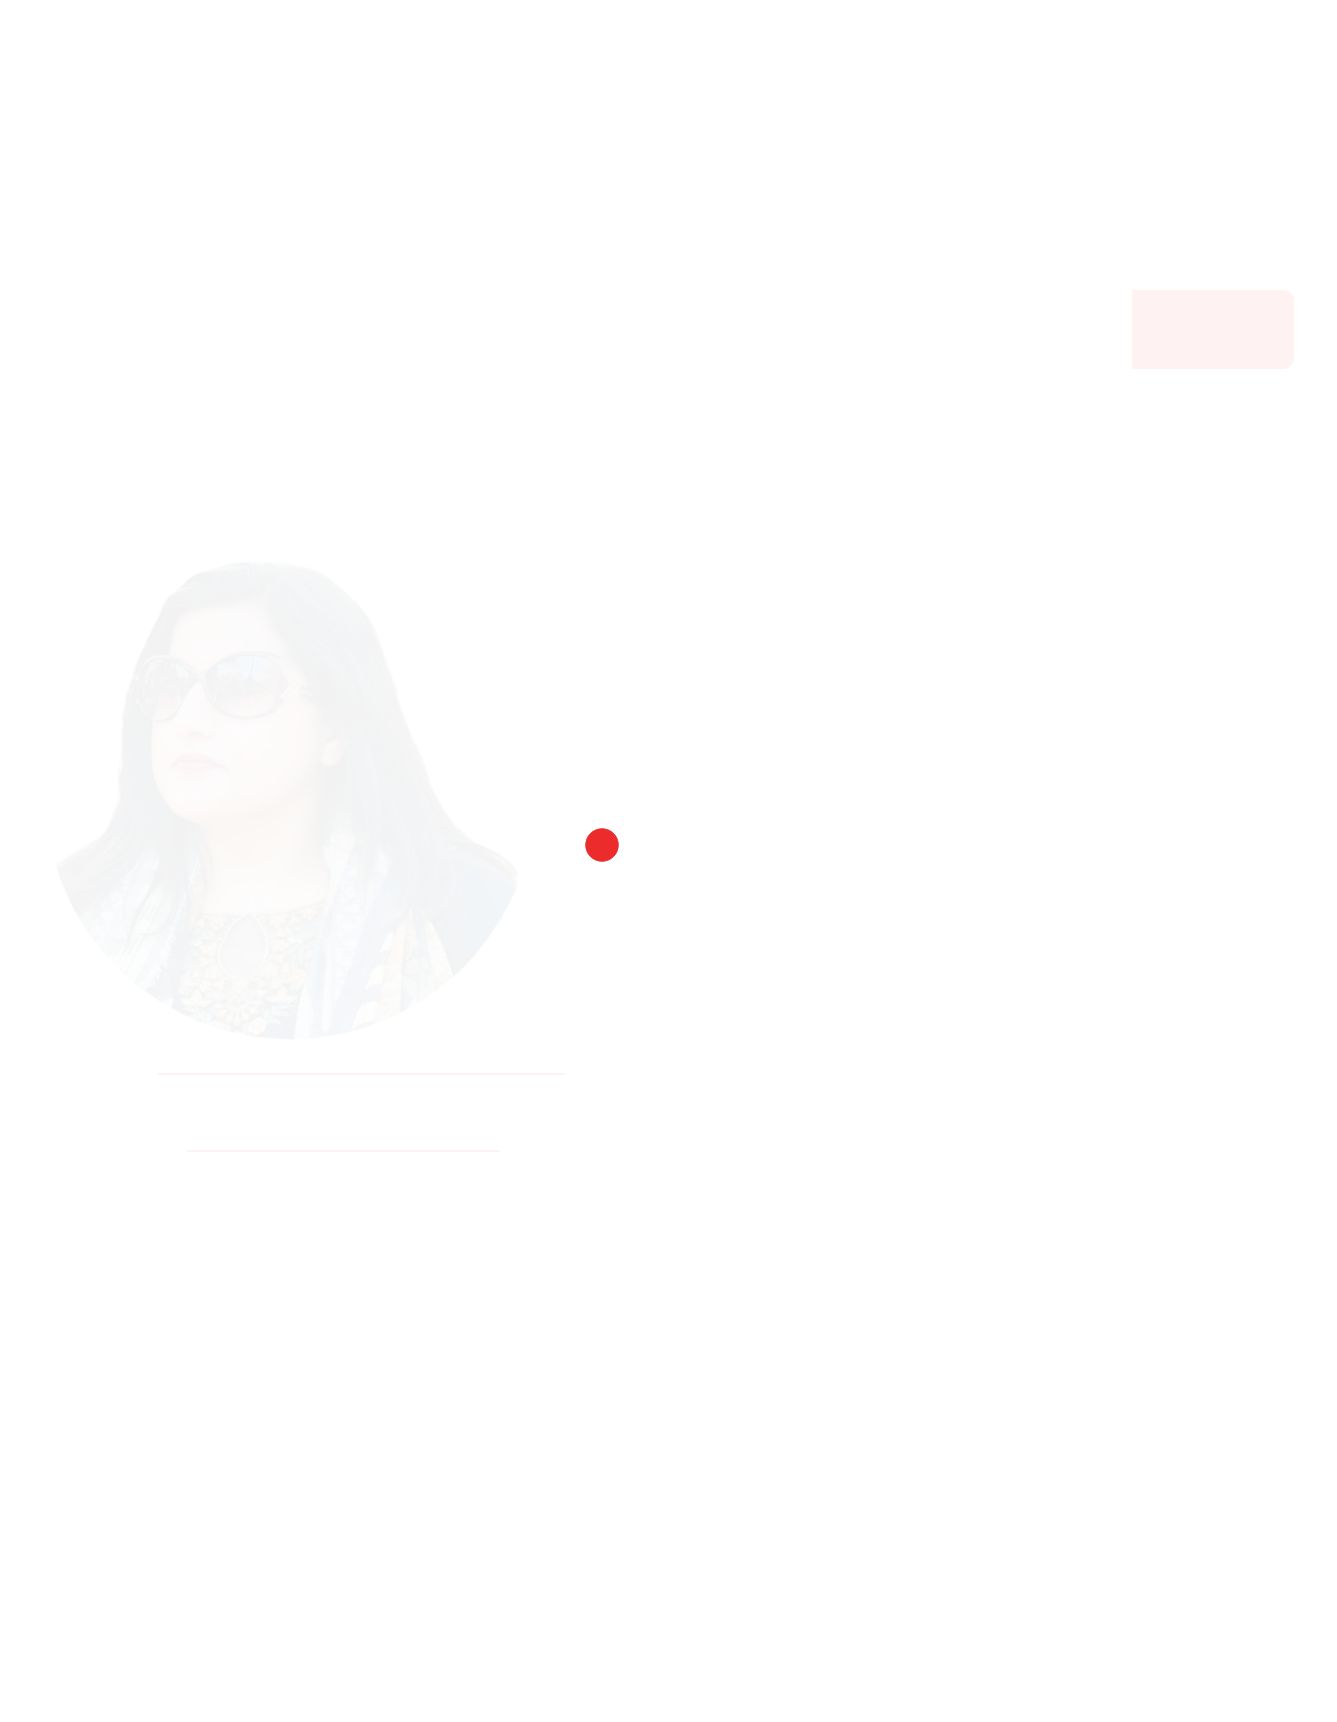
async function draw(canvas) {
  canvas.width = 1337
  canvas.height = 1722
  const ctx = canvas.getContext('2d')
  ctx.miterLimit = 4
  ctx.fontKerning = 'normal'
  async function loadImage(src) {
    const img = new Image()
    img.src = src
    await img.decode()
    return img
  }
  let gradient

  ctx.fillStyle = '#fff'
  ctx.fillRect(0, 0, 1337, 1722)
  ctx.drawImage(await loadImage('image0.png'), 55, 560, 464, 480)
  ctx.fillStyle = '#fef2f2'
  ctx.fillRect(158, 1073, 407, 2)
  ctx.fillRect(187, 1150, 313, 2)
  ctx.beginPath()
  ctx.roundRect(1133, 291, 160, 77, [0, 10, 10, 0])
  ctx.fill()
  ctx.strokeStyle = '#fef2f2'
  ctx.lineWidth = 2
  ctx.stroke()
  gradient = ctx.createRadialGradient(602, 845, 0, 602, 845, 17)
  gradient.addColorStop(0.9, '#ec2b2c')
  gradient.addColorStop(1, '#fefefe')
  ctx.fillStyle = gradient
  ctx.fillRect(585, 828, 34, 34)
  gradient = ctx.createRadialGradient(602, 845, 0, 602, 845, 17)
  gradient.addColorStop(0.9, '#ec2b2c')
  gradient.addColorStop(1, '#ec2b2c00')
  ctx.fillStyle = gradient
  ctx.fillRect(585, 828, 34, 34)
  ctx.fillRect(585, 828, 34, 34)
  ctx.fillRect(585, 828, 34, 34)
}

draw(document.querySelector('canvas'))
